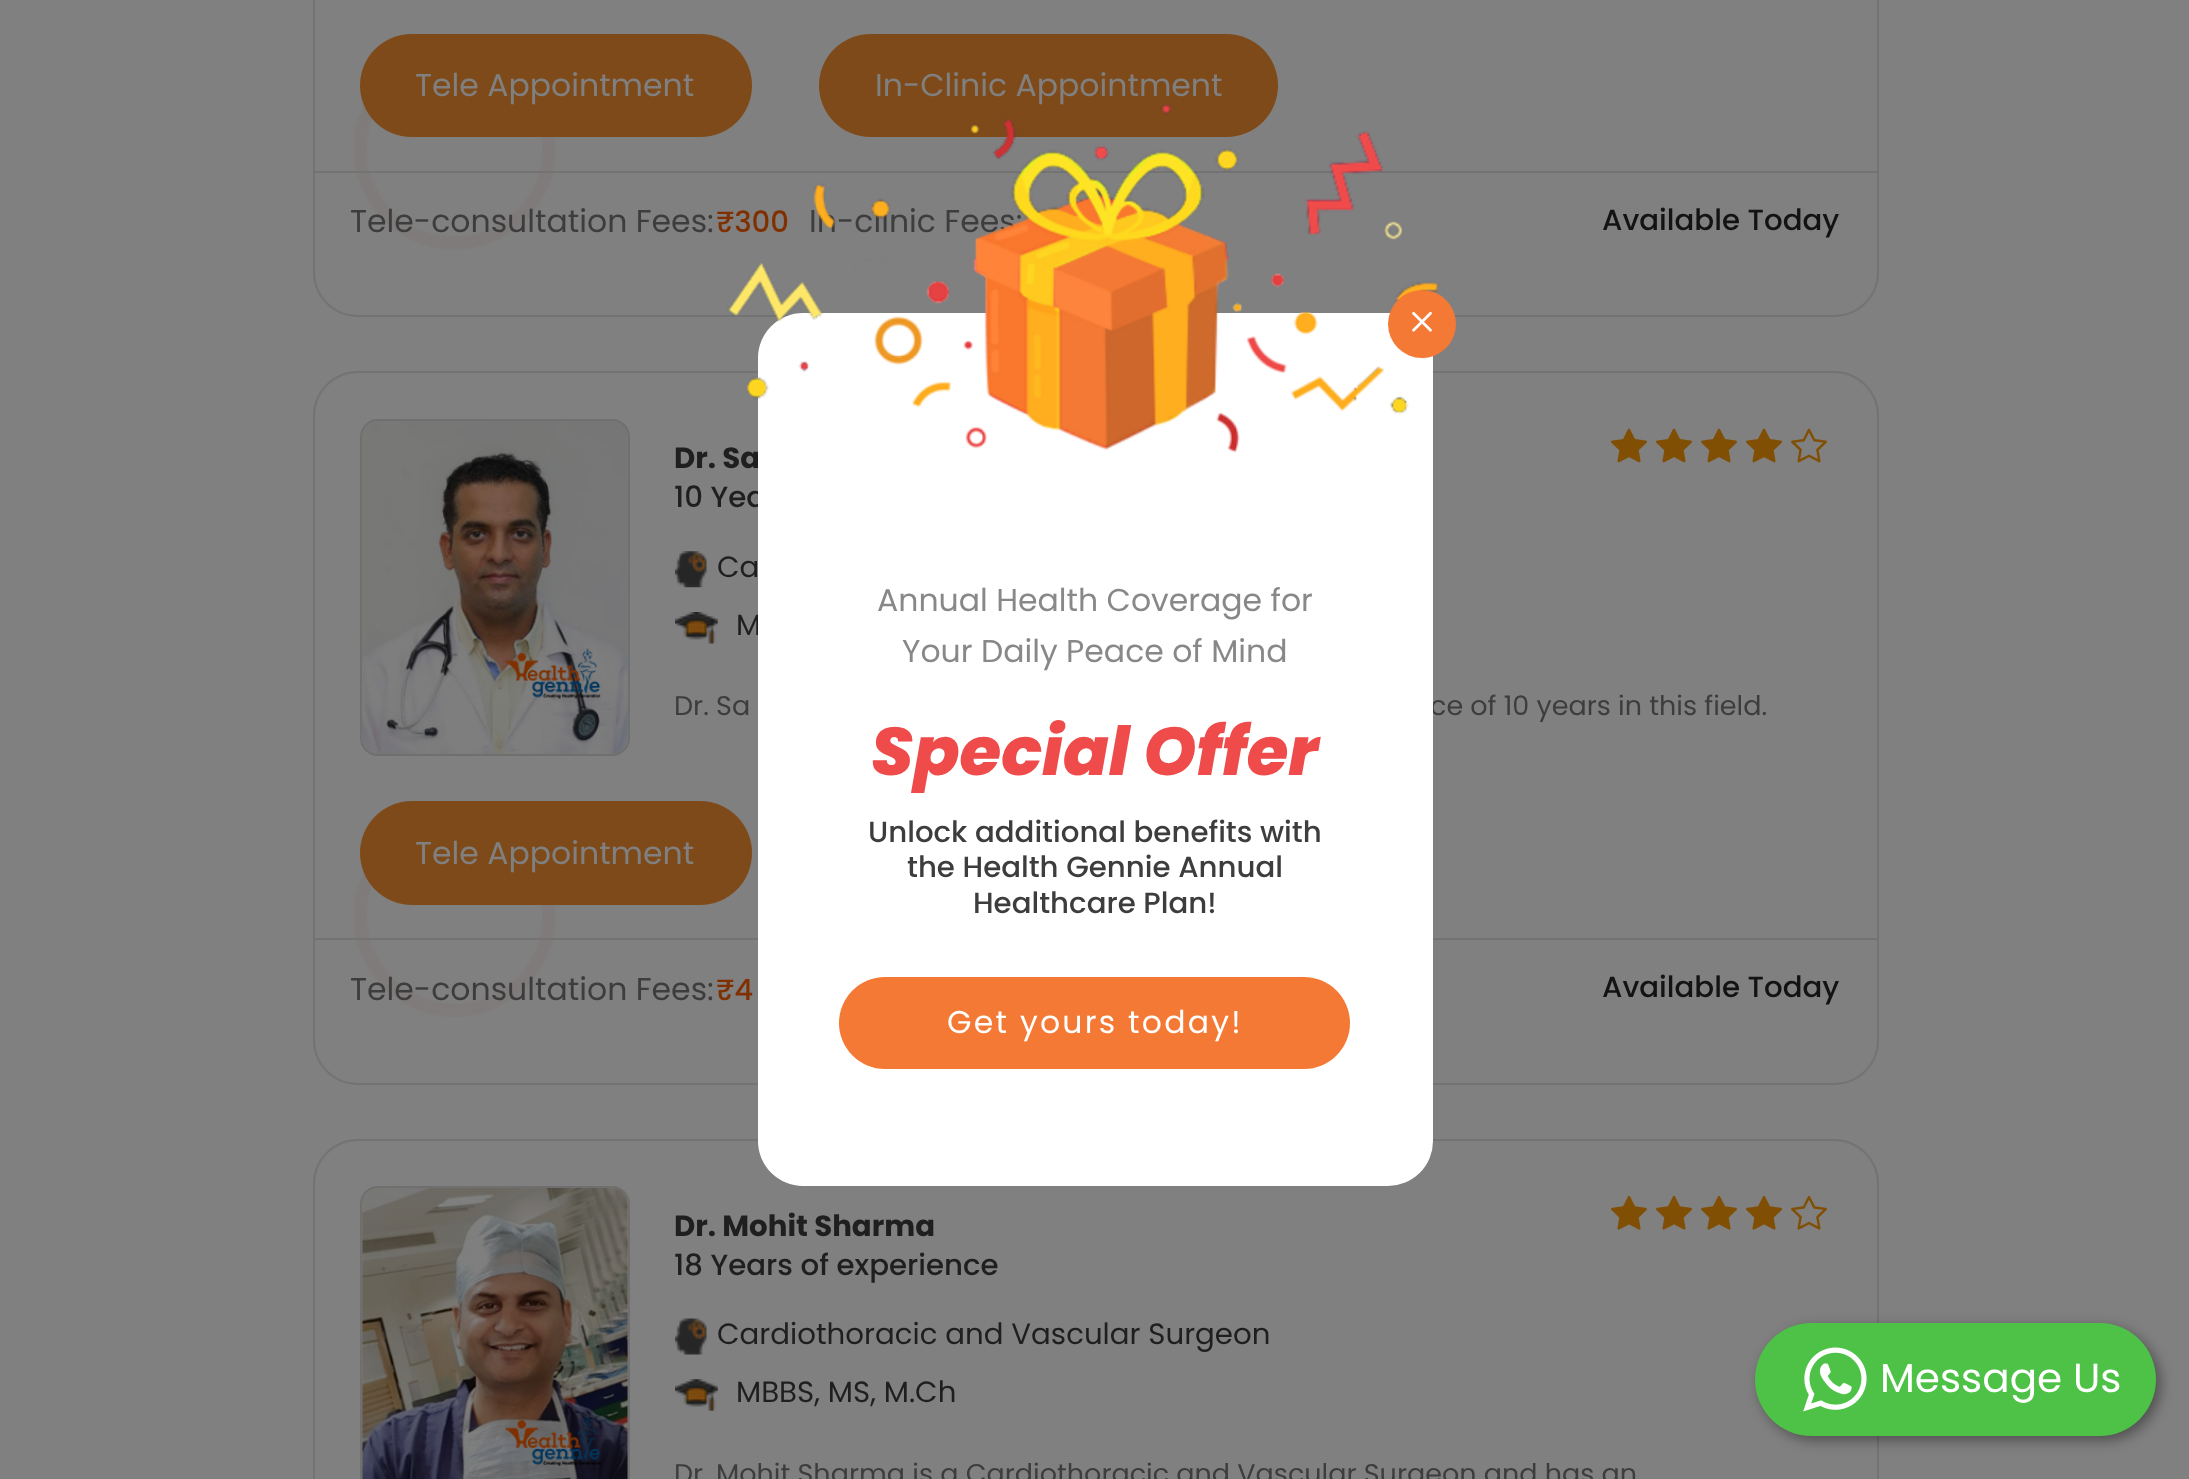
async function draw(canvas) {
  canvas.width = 2189
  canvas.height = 1479
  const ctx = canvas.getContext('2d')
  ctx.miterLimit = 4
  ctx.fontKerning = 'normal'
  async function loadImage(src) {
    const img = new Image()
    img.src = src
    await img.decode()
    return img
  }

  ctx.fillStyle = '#808080'
  ctx.fillRect(0, 0, 2189, 1479)
  ctx.drawImage(await loadImage('image0.png'), 353, 102, 203, 148)
  ctx.beginPath()
  ctx.roundRect(314, -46, 1564, 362, 44)
  ctx.strokeStyle = '#737373'
  ctx.lineWidth = 2
  ctx.stroke()
  ctx.fillStyle = '#7e4a1a'
  ctx.beginPath()
  ctx.roundRect(360, 34, 392, 103, 51.5)
  ctx.fill()
  ctx.font = '31.5px Poppins'
  ctx.fillStyle = '#808080'
  ctx.fillText('Tele Appointment', 415, 96)
  ctx.fillStyle = '#7e4a1a'
  ctx.beginPath()
  ctx.roundRect(819, 34, 459, 103, 51.5)
  ctx.fill()
  ctx.fillStyle = '#808080'
  ctx.fillText('In-Clinic Appointment', 875, 96)
  ctx.fillStyle = '#737373'
  ctx.fillRect(315, 171, 1562, 2)
  ctx.fillStyle = '#3d3d3d'
  ctx.fillText('Tele-consultation Fees:', 350, 232)
  ctx.font = '500 29.25px Poppins'
  ctx.fillStyle = '#803000'
  ctx.fillText('₹300', 716, 232)
  ctx.font = '31.5px Poppins'
  ctx.fillStyle = '#3d3d3d'
  ctx.fillText('In-clinic Fees:', 809, 232)
  ctx.font = '500 29.25px Poppins'
  ctx.fillStyle = '#131313'
  ctx.fillText('Available Today', 1602, 230)
  ctx.drawImage(await loadImage('image6.png'), 353, 870, 203, 147)
  ctx.beginPath()
  ctx.roundRect(314, 372, 1564, 712, 44)
  ctx.stroke()
  ctx.fillStyle = '#80776c'
  ctx.beginPath()
  ctx.roundRect(361, 420, 268, 335, 17)
  ctx.fill()
  ctx.strokeStyle = '#6f6f6f'
  ctx.stroke()
  ctx.drawImage(await loadImage('image1.png'), 362, 421, 266, 333)
  ctx.drawImage(await loadImage('image2.png'), 1611, 428, 36, 35)
  ctx.drawImage(await loadImage('image2.png'), 1656, 428, 36, 35)
  ctx.drawImage(await loadImage('image2.png'), 1701, 428, 36, 35)
  ctx.drawImage(await loadImage('image2.png'), 1746, 428, 36, 35)
  ctx.drawImage(await loadImage('image3.png'), 1791, 428, 36, 35)
  ctx.font = 'bold 29.25px Poppins'
  ctx.fillStyle = '#1f1f1f'
  ctx.fillText('Dr. Sa', 674, 468)
  ctx.font = '500 29.25px Poppins'
  ctx.fillText('10 Yea', 674, 507)
  ctx.drawImage(await loadImage('image4.png'), 675, 551, 32, 37)
  ctx.font = '29.25px Poppins'
  ctx.fillText('Ca', 717, 577)
  ctx.drawImage(await loadImage('image5.png'), 675, 612, 43, 32)
  ctx.fillText('M', 736, 635)
  ctx.font = '27px Poppins'
  ctx.fillStyle = '#3d3d3d'
  ctx.fillText('Dr. Sa', 674, 715)
  ctx.fillText('ce of 10 years in this field.', 1430, 715)
  ctx.fillStyle = '#7e4a1a'
  ctx.beginPath()
  ctx.roundRect(360, 801, 392, 104, 52)
  ctx.fill()
  ctx.font = '31.5px Poppins'
  ctx.fillStyle = '#808080'
  ctx.fillText('Tele Appointment', 415, 864)
  ctx.fillStyle = '#737373'
  ctx.fillRect(315, 938, 1562, 2)
  ctx.fillStyle = '#3d3d3d'
  ctx.fillText('Tele-consultation Fees:', 350, 1000)
  ctx.font = '500 29.25px Poppins'
  ctx.fillStyle = '#803000'
  ctx.fillText('₹4', 716, 1000)
  ctx.fillStyle = '#131313'
  ctx.fillText('Available Today', 1602, 997)
  ctx.beginPath()
  ctx.roundRect(314, 1140, 1564, 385, 44)
  ctx.strokeStyle = '#737373'
  ctx.stroke()
  ctx.fillStyle = '#80776c'
  ctx.beginPath()
  ctx.roundRect(361, 1187, 268, 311, 17)
  ctx.fill()
  ctx.strokeStyle = '#6f6f6f'
  ctx.stroke()
  ctx.drawImage(await loadImage('image7.png'), 362, 1188, 266, 291)
  ctx.font = 'bold 29.25px Poppins'
  ctx.fillStyle = '#1f1f1f'
  ctx.fillText('Dr. Mohit Sharma', 674, 1236)
  ctx.font = '500 29.25px Poppins'
  ctx.fillText('18 Years of experience', 674, 1275)
  ctx.drawImage(await loadImage('image8.png'), 675, 1318, 32, 37)
  ctx.font = '29.25px Poppins'
  ctx.fillText('Cardiothoracic and Vascular Surgeon', 717, 1344)
  ctx.drawImage(await loadImage('image9.png'), 675, 1379, 43, 32)
  ctx.fillText('MBBS, MS, M.Ch', 736, 1402)
  ctx.font = '27px Poppins'
  ctx.fillStyle = '#3d3d3d'
  ctx.fillText('Dr. Mohit Sharma is a Cardiothoracic and Vascular Surgeon and has an', 674, 1483)
  ctx.drawImage(await loadImage('image10.png'), 1611, 1195, 36, 35)
  ctx.drawImage(await loadImage('image10.png'), 1656, 1195, 36, 35)
  ctx.drawImage(await loadImage('image10.png'), 1701, 1195, 36, 35)
  ctx.drawImage(await loadImage('image10.png'), 1746, 1195, 36, 35)
  ctx.drawImage(await loadImage('image11.png'), 1791, 1195, 36, 35)
  ctx.fillStyle = '#fff'
  ctx.beginPath()
  ctx.roundRect(758, 313, 675, 873, 45)
  ctx.fill()
  ctx.drawImage(await loadImage('image13.png'), 727, 104, 712, 349)
  ctx.fillStyle = '#f47934'
  ctx.beginPath()
  ctx.arc(1422, 324, 34, 0, 2 * Math.PI)
  ctx.fill()
  ctx.drawImage(await loadImage('image12.png'), 1412, 311, 20, 21)
  ctx.font = '31.5px Poppins'
  ctx.fillStyle = '#888'
  ctx.fillText('Annual Health Coverage for', 877, 611)
  ctx.fillText('Your Daily Peace of Mind', 902, 662)
  ctx.font = 'italic 800 67.5px Poppins'
  ctx.fillStyle = '#ef4b4a'
  ctx.fillText('Special Offer', 871, 775)
  ctx.font = '500 29.25px Poppins'
  ctx.fillStyle = '#3d3d3d'
  ctx.fillText('Unlock additional benefits with', 868, 842)
  ctx.fillText('the Health Gennie Annual', 907, 877)
  ctx.fillText('Healthcare Plan!', 973, 913)
  ctx.fillStyle = '#f47934'
  ctx.beginPath()
  ctx.roundRect(839, 977, 511, 92, 46)
  ctx.fill()
  ctx.letterSpacing = '2.25px'
  ctx.font = '31.5px Poppins'
  ctx.fillStyle = '#fff'
  ctx.fillText('Get yours today!', 947, 1033)
  ctx.fillStyle = '#00000066'
  ctx.filter = 'blur(7px)'
  ctx.beginPath()
  ctx.roundRect(1760, 1328, 400, 112, 56)
  ctx.fill()
  ctx.filter = 'none'
  ctx.fillStyle = '#4dc247'
  ctx.beginPath()
  ctx.roundRect(1755, 1323, 401, 113, 56.5)
  ctx.fill()
  ctx.drawImage(await loadImage('image14.png'), 1803, 1347, 64, 65)
  ctx.letterSpacing = '0px'
  ctx.font = '40.5px Poppins'
  ctx.fillStyle = '#fff'
  ctx.fillText('Message Us', 1880, 1392)
}

draw(document.querySelector('canvas'))
